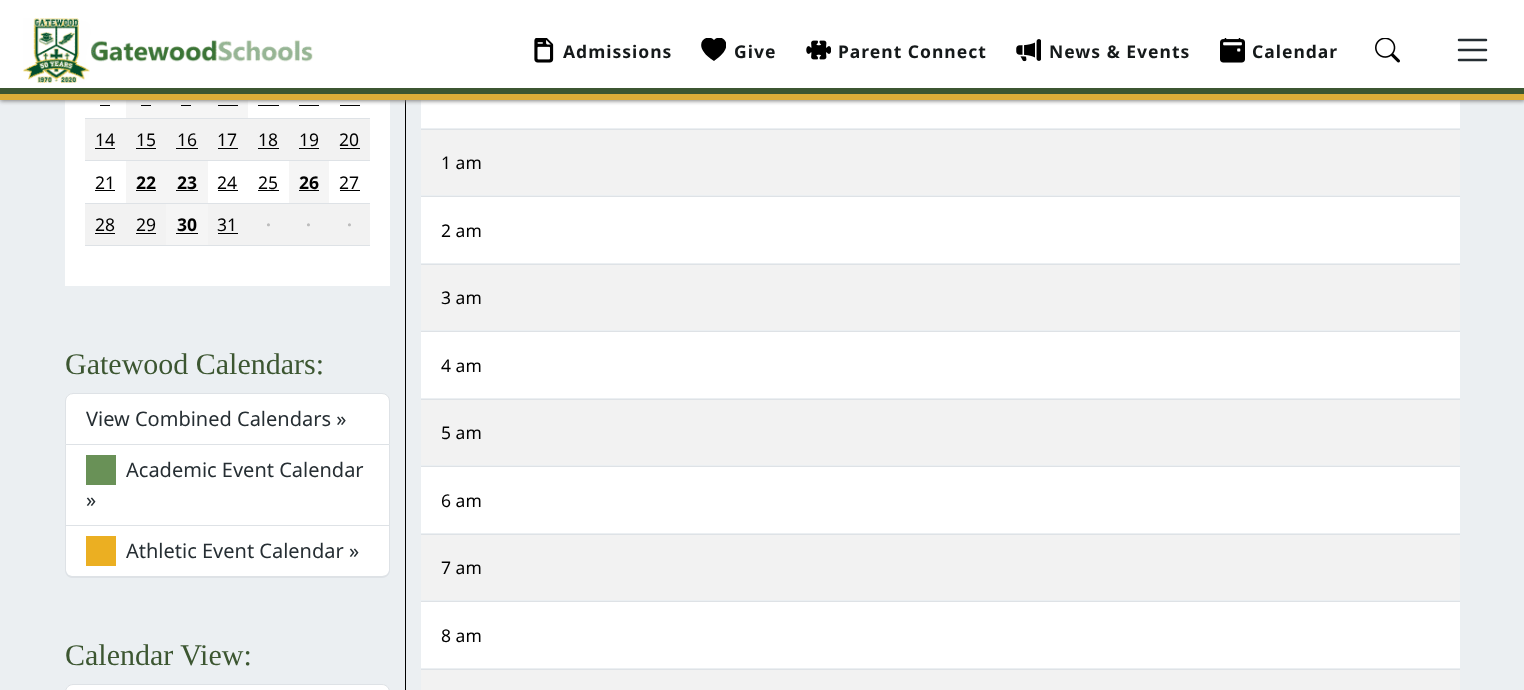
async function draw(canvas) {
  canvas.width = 1524
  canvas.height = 690
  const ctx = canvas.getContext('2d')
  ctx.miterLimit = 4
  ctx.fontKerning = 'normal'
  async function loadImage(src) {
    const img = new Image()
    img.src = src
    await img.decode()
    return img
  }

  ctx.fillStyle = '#ebeff2'
  ctx.fillRect(0, 0, 1524, 690)
  ctx.fillStyle = '#000'
  ctx.fillRect(405, 100, 1, 590)
  ctx.fillStyle = '#fff'
  ctx.fillRect(65, 100, 325, 186)
  ctx.fillStyle = '#f5f5f5'
  ctx.fillRect(126, 100, 122, 18)
  ctx.fillStyle = '#000'
  ctx.fillRect(141, 105, 10, 1)
  ctx.fillRect(340, 105, 20, 1)
  ctx.fillRect(100, 105, 10, 1)
  ctx.fillRect(181, 105, 10, 1)
  ctx.fillRect(218, 105, 20, 1)
  ctx.fillRect(258, 105, 21, 1)
  ctx.fillRect(299, 105, 20, 1)
  ctx.fillStyle = '#fff'
  ctx.fillRect(421, 100, 1039, 28)
  ctx.fillStyle = '#808080'
  ctx.filter = 'blur(2px)'
  ctx.beginPath()
  ctx.rect(0, 1, 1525, 100)
  ctx.fill()
  ctx.filter = 'none'
  ctx.fillStyle = '#fff'
  ctx.fillRect(0, 0, 1524, 88)
  ctx.drawImage(await loadImage('image0.png'), 23, 18, 290, 65)
  ctx.drawImage(await loadImage('image1.png'), 534, 38, 20, 25)
  ctx.letterSpacing = '1px'
  ctx.font = 'bold 17.5px Noto Sans'
  ctx.fillStyle = '#15191a'
  ctx.fillText('Admissions', 563, 58)
  ctx.fillText('Give', 734, 58)
  ctx.save()
  ctx.beginPath()
  ctx.rect(701, 38, 25, 25)
  ctx.clip()
  ctx.fillStyle = '#000'
  ctx.beginPath()
  ctx.moveTo(714, 40)
  ctx.bezierCurveTo(721, 32, 738, 45, 714, 61)
  ctx.bezierCurveTo(689, 45, 707, 32, 714, 40)
  ctx.closePath()
  ctx.fill('evenodd')
  ctx.restore()
  ctx.drawImage(await loadImage('image2.png'), 806, 40, 25, 20)
  ctx.fillText('Parent Connect', 838, 58)
  ctx.drawImage(await loadImage('image3.png'), 1016, 39, 25, 23)
  ctx.fillText('News & Events', 1049, 58)
  ctx.drawImage(await loadImage('image4.png'), 1220, 38, 25, 25)
  ctx.fillText('Calendar', 1252, 58)
  ctx.drawImage(await loadImage('image5.png'), 1375, 38, 25, 25)
  ctx.beginPath()
  ctx.moveTo(1459, 40)
  ctx.lineTo(1486, 40)
  ctx.moveTo(1459, 50)
  ctx.lineTo(1486, 50)
  ctx.moveTo(1459, 60)
  ctx.lineTo(1486, 60)
  ctx.strokeStyle = '#262e33'
  ctx.lineWidth = 2.5
  ctx.lineCap = 'round'
  ctx.stroke()
  ctx.fillStyle = '#3c5631'
  ctx.fillRect(0, 88, 1524, 6)
  ctx.fillStyle = '#dbad38'
  ctx.fillRect(0, 94, 1524, 6)
  ctx.fillStyle = '#dee2e6'
  ctx.fillRect(85, 118, 285, 1)
  ctx.fillStyle = '#f2f2f2'
  ctx.fillRect(85, 119, 285, 41)
  ctx.letterSpacing = '0px'
  ctx.font = '17.5px Noto Sans'
  ctx.fillStyle = '#000'
  ctx.fillText('14', 95, 146)
  ctx.fillRect(95, 148, 20, 1)
  ctx.fillText('15', 136, 146)
  ctx.fillRect(136, 148, 20, 1)
  ctx.fillText('16', 177, 146)
  ctx.fillRect(176, 148, 22, 1)
  ctx.fillText('17', 217, 146)
  ctx.fillRect(218, 148, 20, 1)
  ctx.fillText('18', 258, 146)
  ctx.fillRect(258, 148, 21, 1)
  ctx.fillText('19', 299, 146)
  ctx.fillRect(299, 148, 20, 1)
  ctx.fillStyle = '#dee2e6'
  ctx.fillRect(85, 160, 285, 1)
  ctx.fillStyle = '#000'
  ctx.fillText('20', 339, 146)
  ctx.fillRect(340, 148, 20, 1)
  ctx.fillText('21', 95, 189)
  ctx.fillRect(95, 190, 20, 1)
  ctx.fillStyle = '#f5f5f5'
  ctx.fillRect(126, 161, 82, 42)
  ctx.font = 'bold 17.5px Noto Sans'
  ctx.fillStyle = '#000'
  ctx.fillText('22', 136, 189)
  ctx.fillRect(136, 190, 20, 1)
  ctx.fillText('23', 177, 189)
  ctx.fillRect(176, 190, 22, 1)
  ctx.font = '17.5px Noto Sans'
  ctx.fillText('24', 217, 189)
  ctx.fillRect(218, 190, 20, 1)
  ctx.fillText('25', 258, 189)
  ctx.fillRect(258, 190, 21, 1)
  ctx.fillStyle = '#f5f5f5'
  ctx.fillRect(289, 161, 40, 42)
  ctx.font = 'bold 17.5px Noto Sans'
  ctx.fillStyle = '#000'
  ctx.fillText('26', 299, 189)
  ctx.fillRect(299, 190, 20, 1)
  ctx.fillStyle = '#dee2e6'
  ctx.fillRect(85, 203, 285, 1)
  ctx.font = '17.5px Noto Sans'
  ctx.fillStyle = '#000'
  ctx.fillText('27', 339, 189)
  ctx.fillRect(340, 190, 20, 1)
  ctx.fillStyle = '#f2f2f2'
  ctx.fillRect(85, 204, 81, 41)
  ctx.fillStyle = '#000'
  ctx.fillText('28', 95, 231)
  ctx.fillRect(95, 233, 20, 1)
  ctx.fillText('29', 136, 231)
  ctx.fillRect(136, 233, 20, 1)
  ctx.fillStyle = '#f5f5f5'
  ctx.fillRect(166, 204, 42, 41)
  ctx.font = 'bold 17.5px Noto Sans'
  ctx.fillStyle = '#000'
  ctx.fillText('30', 177, 231)
  ctx.fillRect(176, 233, 22, 1)
  ctx.fillStyle = '#f2f2f2'
  ctx.fillRect(208, 204, 162, 41)
  ctx.font = '17.5px Noto Sans'
  ctx.fillStyle = '#000'
  ctx.fillText('31', 217, 231)
  ctx.fillRect(218, 233, 20, 1)
  ctx.font = 'bold 17.5px Noto Sans'
  ctx.fillStyle = '#bcbcbc'
  ctx.fillText('·', 266, 231)
  ctx.fillText('·', 306, 231)
  ctx.fillStyle = '#dee2e6'
  ctx.fillRect(85, 245, 285, 1)
  ctx.fillStyle = '#bcbcbc'
  ctx.fillText('·', 347, 231)
  ctx.font = '30px Liberation Serif'
  ctx.fillStyle = '#3c5631'
  ctx.fillText('Gatewood Calendars:', 65, 374)
  ctx.fillStyle = '#fff'
  ctx.beginPath()
  ctx.roundRect(65.5, 393.5, 324, 51, [7.5, 7.5, 0, 0])
  ctx.fill()
  ctx.strokeStyle = '#dee2e6'
  ctx.lineWidth = 1
  ctx.stroke()
  ctx.font = '20px Noto Sans'
  ctx.fillStyle = '#262e33'
  ctx.fillText('View Combined Calendars »', 86, 426)
  ctx.fillStyle = '#fff'
  ctx.fillRect(66, 445, 323, 80)
  ctx.fillStyle = '#dee2e6'
  ctx.fillRect(389, 445, 1, 81)
  ctx.fillRect(65, 525, 325, 1)
  ctx.fillRect(65, 445, 1, 81)
  ctx.fillStyle = '#699157'
  ctx.fillRect(86, 455, 30, 30)
  ctx.fillStyle = '#262e33'
  ctx.fillText('Academic Event Calendar', 126, 477)
  ctx.fillText('»', 86, 507)
  ctx.fillStyle = '#fff'
  ctx.beginPath()
  ctx.roundRect(66, 526, 323, 50, [0, 0, 6, 6])
  ctx.fill()
  ctx.fillStyle = '#dee2e6'
  ctx.beginPath()
  ctx.moveTo(65, 526)
  ctx.lineTo(390, 526)
  ctx.lineTo(390, 570)
  ctx.bezierCurveTo(390, 574, 387, 578, 382, 578)
  ctx.lineTo(72, 578)
  ctx.bezierCurveTo(68, 578, 65, 574, 65, 570)
  ctx.closePath()
  ctx.moveTo(66, 526)
  ctx.lineTo(389, 526)
  ctx.lineTo(389, 570)
  ctx.bezierCurveTo(389, 573, 386, 576, 382, 576)
  ctx.lineTo(72, 576)
  ctx.bezierCurveTo(69, 576, 66, 573, 66, 570)
  ctx.closePath()
  ctx.fill('evenodd')
  ctx.fillStyle = '#ebaf22'
  ctx.fillRect(86, 536, 30, 30)
  ctx.fillStyle = '#262e33'
  ctx.fillText('Athletic Event Calendar »', 126, 558)
  ctx.font = '30px Liberation Serif'
  ctx.fillStyle = '#3c5631'
  ctx.fillText('Calendar View:', 65, 665)
  ctx.fillStyle = '#fff'
  ctx.beginPath()
  ctx.moveTo(73, 684.5)
  ctx.lineTo(382, 684.5)
  ctx.bezierCurveTo(386, 684.5, 389.5, 688, 389.5, 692)
  ctx.lineTo(389.5, 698.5)
  ctx.lineTo(65.5, 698.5)
  ctx.lineTo(65.5, 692)
  ctx.bezierCurveTo(65.5, 688, 69, 684.5, 73, 684.5)
  ctx.closePath()
  ctx.fill()
  ctx.stroke()
  ctx.fillStyle = '#dee2e6'
  ctx.fillRect(421, 129, 1039, 1)
  ctx.fillStyle = '#f2f2f2'
  ctx.fillRect(421, 130, 1039, 65)
  ctx.font = '17.5px Noto Sans'
  ctx.fillStyle = '#000'
  ctx.fillText('1 am', 441, 169)
  ctx.fillStyle = '#dee2e6'
  ctx.fillRect(421, 196, 1039, 1)
  ctx.fillStyle = '#fff'
  ctx.fillRect(421, 197, 1039, 66)
  ctx.fillStyle = '#000'
  ctx.fillText('2 am', 441, 237)
  ctx.fillStyle = '#dee2e6'
  ctx.fillRect(421, 264, 1039, 1)
  ctx.fillStyle = '#f2f2f2'
  ctx.fillRect(421, 265, 1039, 65)
  ctx.fillStyle = '#000'
  ctx.fillText('3 am', 441, 304)
  ctx.fillStyle = '#dee2e6'
  ctx.fillRect(421, 331, 1039, 1)
  ctx.fillStyle = '#fff'
  ctx.fillRect(421, 332, 1039, 66)
  ctx.fillStyle = '#000'
  ctx.fillText('4 am', 441, 372)
  ctx.fillStyle = '#dee2e6'
  ctx.fillRect(421, 399, 1039, 1)
  ctx.fillStyle = '#f2f2f2'
  ctx.fillRect(421, 400, 1039, 65)
  ctx.fillStyle = '#000'
  ctx.fillText('5 am', 441, 439)
  ctx.fillStyle = '#dee2e6'
  ctx.fillRect(421, 466, 1039, 1)
  ctx.fillStyle = '#fff'
  ctx.fillRect(421, 467, 1039, 66)
  ctx.fillStyle = '#000'
  ctx.fillText('6 am', 441, 507)
  ctx.fillStyle = '#dee2e6'
  ctx.fillRect(421, 534, 1039, 1)
  ctx.fillStyle = '#f2f2f2'
  ctx.fillRect(421, 535, 1039, 65)
  ctx.fillStyle = '#000'
  ctx.fillText('7 am', 441, 574)
  ctx.fillStyle = '#dee2e6'
  ctx.fillRect(421, 601, 1039, 1)
  ctx.fillStyle = '#fff'
  ctx.fillRect(421, 602, 1039, 66)
  ctx.fillStyle = '#000'
  ctx.fillText('8 am', 441, 642)
  ctx.fillStyle = '#dee2e6'
  ctx.fillRect(421, 669, 1039, 1)
  ctx.fillStyle = '#f2f2f2'
  ctx.fillRect(421, 670, 1039, 20)
}

draw(document.querySelector('canvas'))
